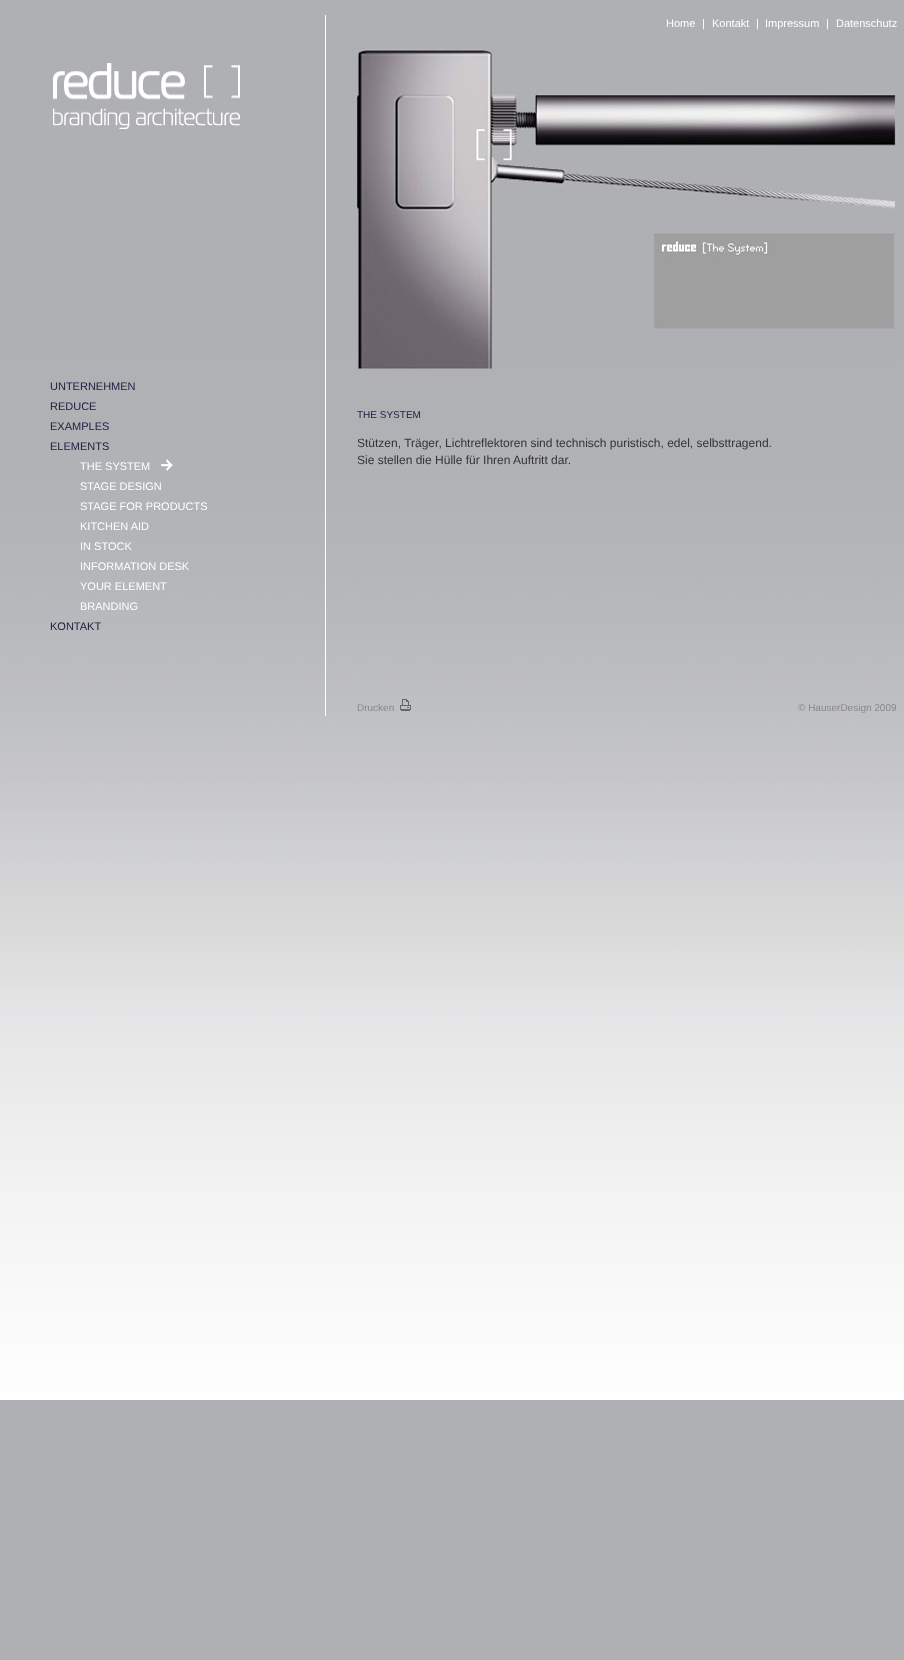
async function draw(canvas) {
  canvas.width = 904
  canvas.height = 1660
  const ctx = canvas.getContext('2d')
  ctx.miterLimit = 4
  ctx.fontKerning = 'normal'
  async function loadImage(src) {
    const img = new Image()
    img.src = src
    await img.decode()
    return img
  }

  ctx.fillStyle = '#fff'
  ctx.fillRect(0, 0, 904, 1660)
  ctx.drawImage(await loadImage('image0.png'), 0, 0, 904, 1660)
  ctx.drawImage(await loadImage('image1.png'), 53, 63, 187, 66)
  ctx.font = '11px Liberation Sans'
  ctx.fillStyle = '#191d3e'
  ctx.fillText('UNTERNEHMEN', 50, 390)
  ctx.fillText('REDUCE', 50, 410)
  ctx.fillText('EXAMPLES', 50, 430)
  ctx.fillText('ELEMENTS', 50, 450)
  ctx.fillStyle = '#fff'
  ctx.fillText('THE SYSTEM', 80, 470)
  ctx.drawImage(await loadImage('image2.png'), 161, 459, 12, 12)
  ctx.fillText('STAGE DESIGN', 80, 490)
  ctx.fillText('STAGE FOR PRODUCTS', 80, 510)
  ctx.fillText('KITCHEN AID', 80, 530)
  ctx.fillText('IN STOCK', 80, 550)
  ctx.fillText('INFORMATION DESK', 80, 570)
  ctx.fillText('YOUR ELEMENT', 80, 590)
  ctx.fillText('BRANDING', 80, 610)
  ctx.fillStyle = '#191d3e'
  ctx.fillText('KONTAKT', 50, 630)
  ctx.fillStyle = '#fff'
  ctx.fillRect(325, 15, 1, 701)
  ctx.fillText('Home', 666, 27)
  ctx.fillText('|', 702, 27)
  ctx.fillText('Kontakt', 712, 27)
  ctx.fillText('|', 756, 27)
  ctx.fillText('Impressum', 765, 27)
  ctx.fillText('|', 826, 27)
  ctx.fillText('Datenschutz', 836, 27)
  ctx.drawImage(await loadImage('image3.png'), 357, 49, 540, 320)
  ctx.font = '10px Liberation Sans'
  ctx.fillStyle = '#191d3e'
  ctx.fillText('THE SYSTEM', 357, 418)
  ctx.font = '12px Liberation Sans'
  ctx.fillStyle = '#333'
  ctx.fillText('Stützen, Träger, Lichtreflektoren sind technisch puristisch, edel, selbsttragend.', 357, 447)
  ctx.fillText('Sie stellen die Hülle für Ihren Auftritt dar.', 357, 464)
  ctx.font = '10px Liberation Sans'
  ctx.fillStyle = '#888'
  ctx.fillText('Drucken', 357, 711)
  ctx.drawImage(await loadImage('image4.png'), 400, 699, 11, 12)
  ctx.fillText('© HauserDesign 2009', 798, 711)
}

draw(document.querySelector('canvas'))
